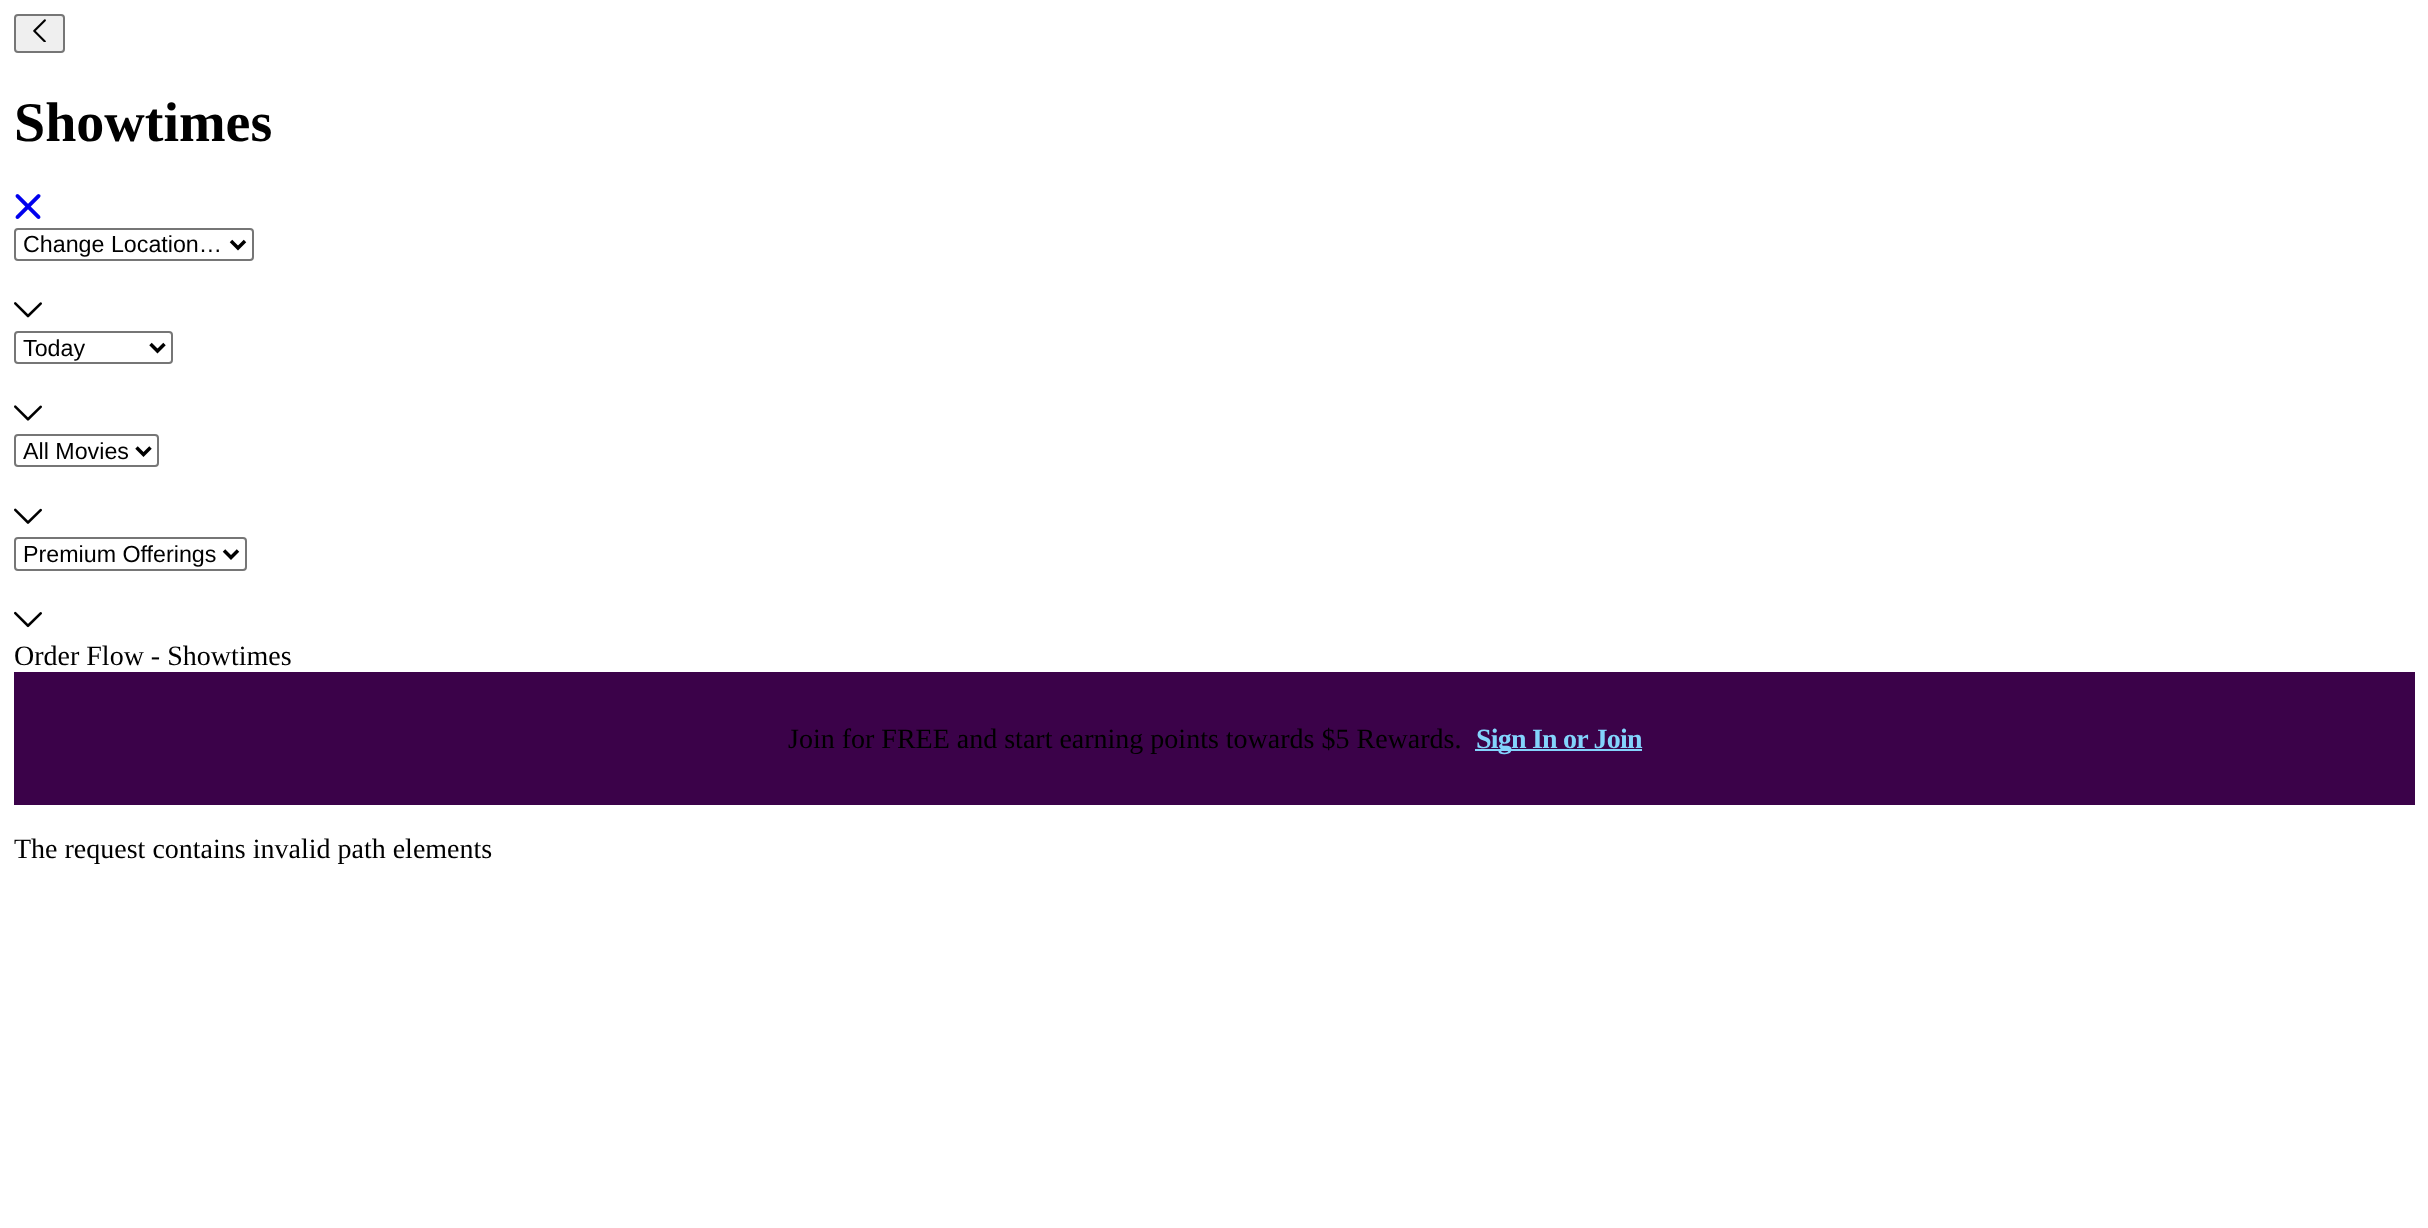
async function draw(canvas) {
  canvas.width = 2428
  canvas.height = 1228
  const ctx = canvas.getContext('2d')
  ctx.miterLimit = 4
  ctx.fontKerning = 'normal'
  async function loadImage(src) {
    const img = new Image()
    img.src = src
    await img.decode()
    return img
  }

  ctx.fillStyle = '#fff'
  ctx.fillRect(0, 0, 2428, 1228)
  ctx.fillStyle = '#efefef'
  ctx.beginPath()
  ctx.roundRect(15, 15, 49, 37, 3)
  ctx.fill()
  ctx.strokeStyle = '#767676'
  ctx.lineWidth = 2
  ctx.stroke()
  ctx.drawImage(await loadImage('image0.png'), 33, 19, 13, 23)
  ctx.font = 'bold 56px Liberation Serif'
  ctx.fillStyle = '#000'
  ctx.fillText('Showtimes', 14, 141)
  ctx.drawImage(await loadImage('image1.png'), 15, 194, 26, 25)
  ctx.beginPath()
  ctx.roundRect(15, 229, 238, 31, 3)
  ctx.stroke()
  ctx.beginPath()
  ctx.moveTo(231, 241)
  ctx.lineTo(238, 248)
  ctx.lineTo(245, 241)
  ctx.strokeStyle = '#000'
  ctx.lineWidth = 3.5
  ctx.stroke()
  ctx.font = '23.25px Liberation Sans'
  ctx.fillText('Change Location…', 23, 252)
  ctx.drawImage(await loadImage('image2.png'), 14, 302, 28, 16)
  ctx.beginPath()
  ctx.roundRect(15, 332, 157, 31, 3)
  ctx.strokeStyle = '#767676'
  ctx.lineWidth = 2
  ctx.stroke()
  ctx.beginPath()
  ctx.moveTo(150.5, 344)
  ctx.lineTo(157.5, 351)
  ctx.lineTo(164.5, 344)
  ctx.strokeStyle = '#000'
  ctx.lineWidth = 3.5
  ctx.stroke()
  ctx.fillText('Today', 23, 356)
  ctx.drawImage(await loadImage('image3.png'), 14, 405, 28, 16)
  ctx.beginPath()
  ctx.roundRect(15, 435, 143, 31, 3)
  ctx.strokeStyle = '#767676'
  ctx.lineWidth = 2
  ctx.stroke()
  ctx.beginPath()
  ctx.moveTo(136.5, 447.5)
  ctx.lineTo(143.5, 454.5)
  ctx.lineTo(150.5, 447.5)
  ctx.strokeStyle = '#000'
  ctx.lineWidth = 3.5
  ctx.stroke()
  ctx.fillText('All Movies', 23, 459)
  ctx.drawImage(await loadImage('image4.png'), 14, 508, 28, 16)
  ctx.beginPath()
  ctx.roundRect(15, 538, 231, 32, 3)
  ctx.strokeStyle = '#767676'
  ctx.lineWidth = 2
  ctx.stroke()
  ctx.beginPath()
  ctx.moveTo(224, 550.5)
  ctx.lineTo(231, 557.5)
  ctx.lineTo(238, 550.5)
  ctx.strokeStyle = '#000'
  ctx.lineWidth = 3.5
  ctx.stroke()
  ctx.fillText('Premium Offerings', 23, 562)
  ctx.drawImage(await loadImage('image5.png'), 14, 611, 28, 17)
  ctx.font = '28px Liberation Serif'
  ctx.fillText('Order Flow - Showtimes', 14, 665)
  ctx.fillStyle = '#3b0249'
  ctx.fillRect(14, 672, 2401, 133)
  ctx.fillStyle = '#000'
  ctx.fillText('Join for FREE and start earning points towards $5 Rewards.', 788, 748)
  ctx.fillStyle = '#83d4fc'
  ctx.fillRect(1475, 749, 167, 2)
  ctx.letterSpacing = '-0.8px'
  ctx.font = 'bold 28px Liberation Serif'
  ctx.fillText('Sign In or Join', 1476, 748)
  ctx.letterSpacing = '0px'
  ctx.font = '28px Liberation Serif'
  ctx.fillStyle = '#000'
  ctx.fillText('The request contains invalid path elements', 14, 858)
}

draw(document.querySelector('canvas'))
